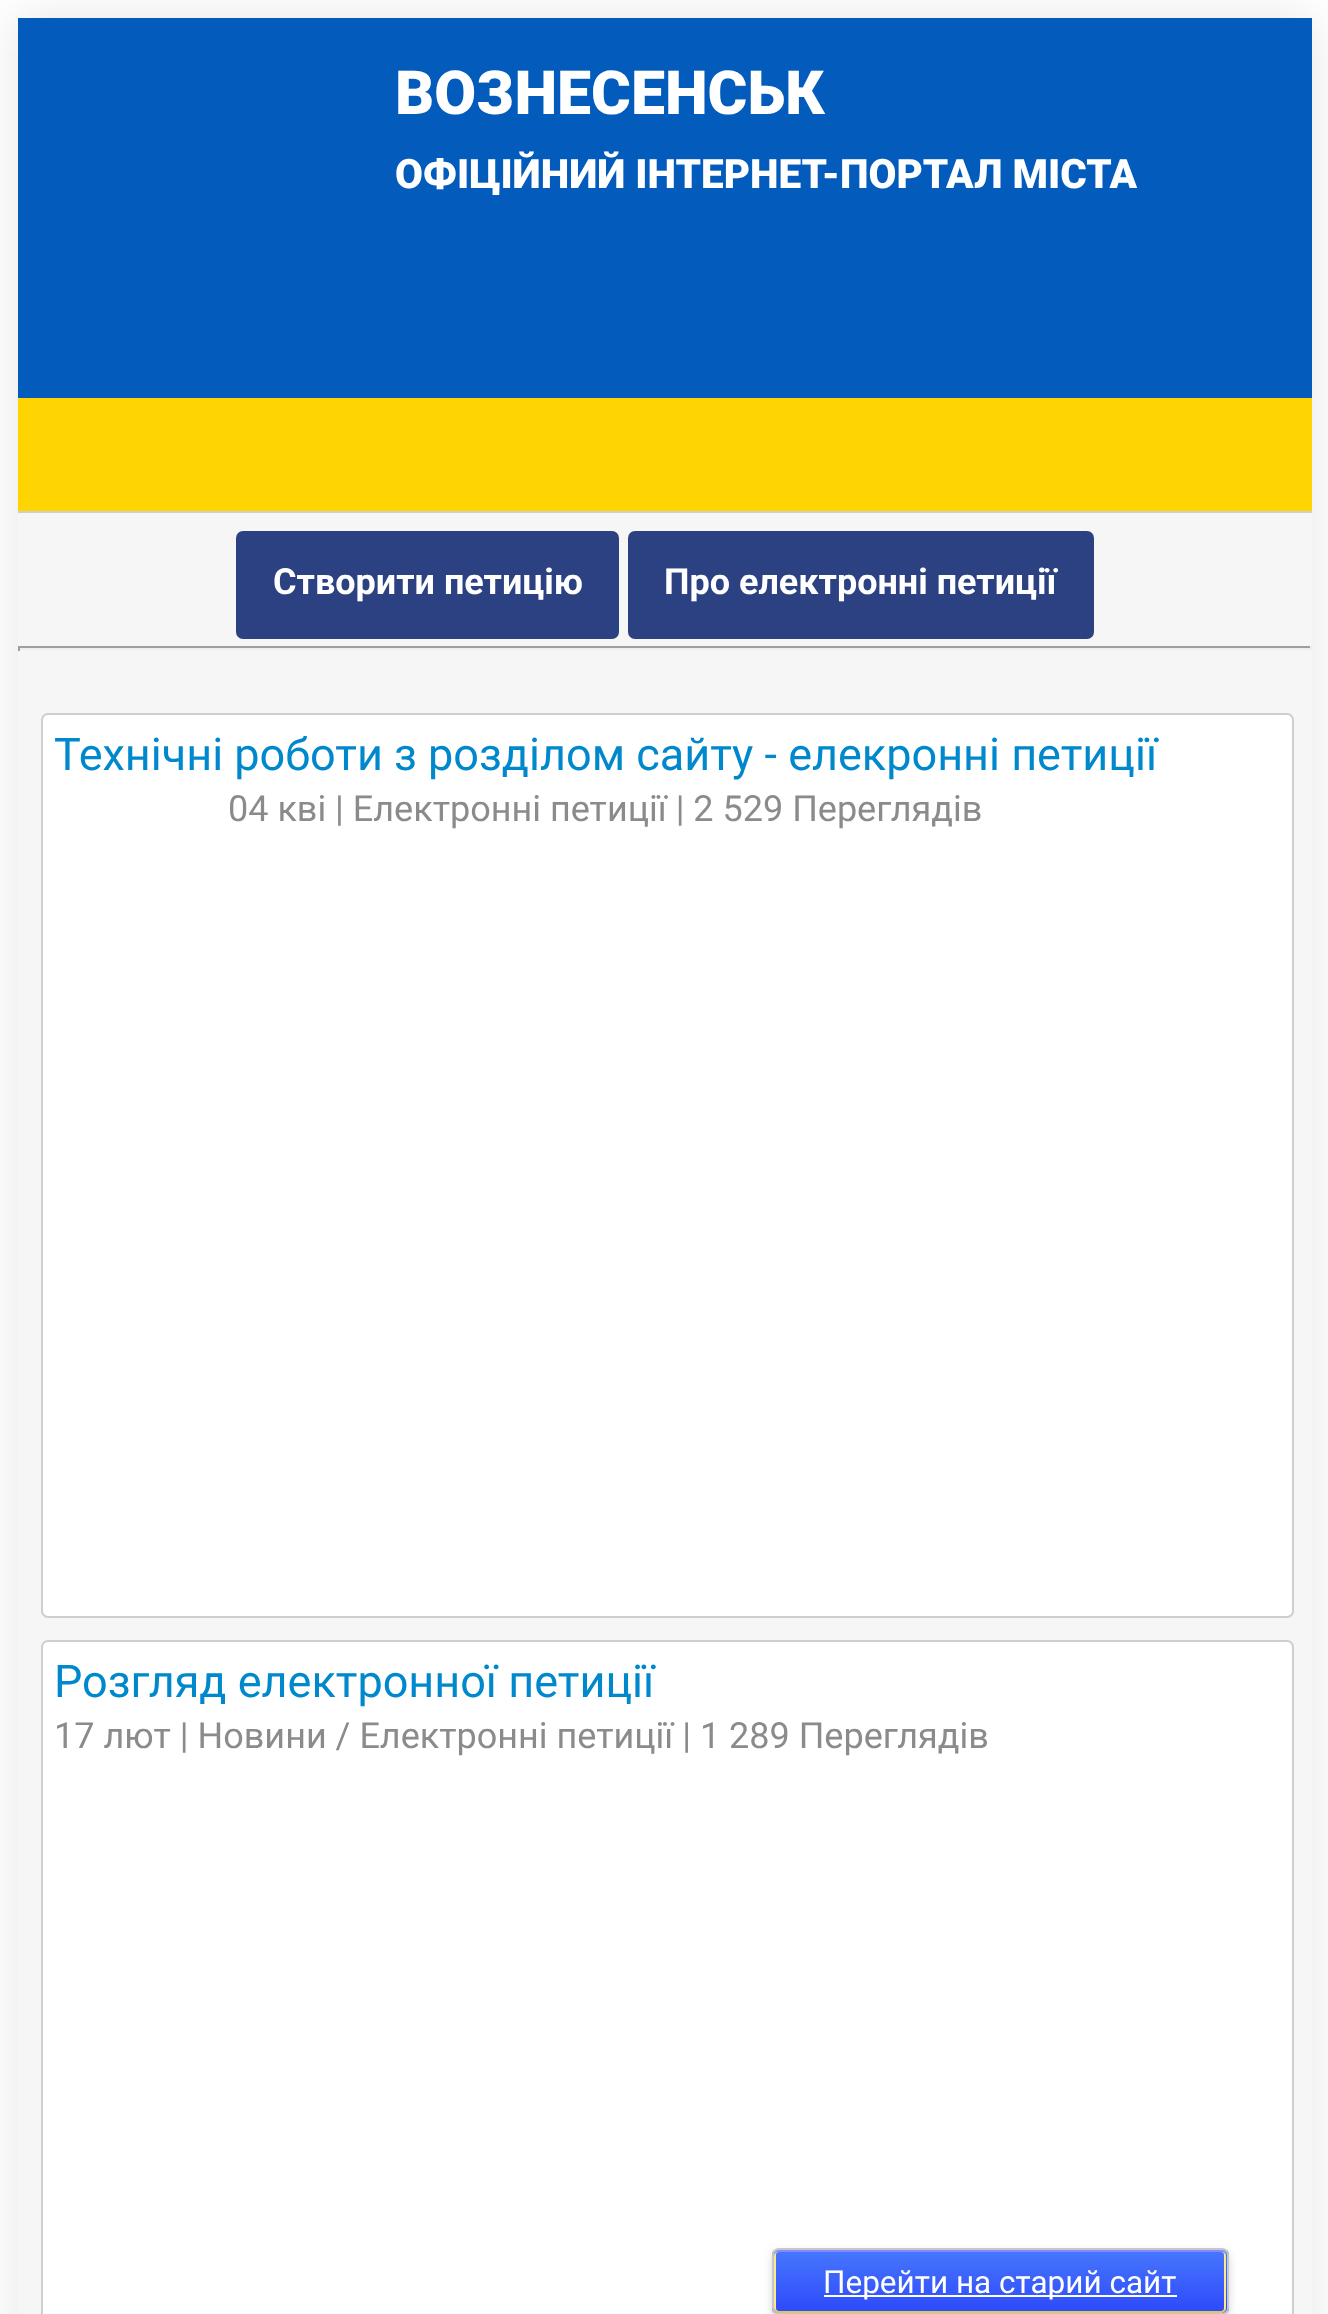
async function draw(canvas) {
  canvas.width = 1328
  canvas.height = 2314
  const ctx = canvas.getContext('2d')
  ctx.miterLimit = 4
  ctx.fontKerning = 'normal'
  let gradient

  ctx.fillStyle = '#fff'
  ctx.fillRect(0, 0, 1328, 2314)
  ctx.fillStyle = '#0000001a'
  ctx.filter = 'blur(22.5px)'
  ctx.beginPath()
  ctx.rect(18, 18, 1294, 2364)
  ctx.fill()
  ctx.filter = 'none'
  ctx.fillStyle = '#f6f6f6'
  ctx.fillRect(18, 513, 1294, 1801)
  ctx.fillStyle = '#cecece'
  ctx.fillRect(18, 511, 1294, 2)
  ctx.fillStyle = '#035bbc'
  ctx.fillRect(18, 18, 1294, 380)
  ctx.font = '900 60.75px Roboto'
  ctx.fillStyle = '#fff'
  ctx.fillText('ВОЗНЕСЕНСЬК', 395, 114)
  ctx.font = '900 40.5px Roboto'
  ctx.fillText('ОФІЦІЙНИЙ ІНТЕРНЕТ-ПОРТАЛ МІСТА', 395, 188)
  ctx.fillStyle = '#fed401'
  ctx.fillRect(18, 398, 1294, 113)
  ctx.fillStyle = '#2b4181'
  ctx.beginPath()
  ctx.roundRect(236, 531, 383, 108, 7)
  ctx.fill()
  ctx.font = 'bold 36px Roboto'
  ctx.fillStyle = '#fff'
  ctx.fillText('Створити петицію', 273, 594)
  ctx.fillStyle = '#2b4181'
  ctx.beginPath()
  ctx.roundRect(628, 531, 466, 108, 7)
  ctx.fill()
  ctx.fillStyle = '#fff'
  ctx.fillText('Про електронні петиції', 664, 594)
  ctx.fillStyle = '#9f9f9f'
  ctx.fillRect(18, 646, 1294, 2)
  ctx.fillStyle = '#eee'
  ctx.fillRect(1310, 646, 2, 5)
  ctx.fillRect(18, 648, 1294, 2)
  ctx.fillStyle = '#9f9f9f'
  ctx.fillRect(18, 646, 2, 5)
  ctx.fillStyle = '#fff'
  ctx.beginPath()
  ctx.roundRect(42, 714, 1251, 903, 6)
  ctx.fill()
  ctx.strokeStyle = '#cecece'
  ctx.lineWidth = 2
  ctx.stroke()
  ctx.font = '45px Roboto'
  ctx.fillStyle = '#08c'
  ctx.fillText('Технічні роботи з розділом сайту - елекронні петиції', 54, 770)
  ctx.font = '36px Roboto'
  ctx.fillStyle = '#8c8b8b'
  ctx.fillText('04 кві | Електронні петиції | 2 529 Переглядів', 228, 821)
  ctx.fillStyle = '#fff'
  ctx.beginPath()
  ctx.roundRect(42, 1641, 1251, 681, 6)
  ctx.fill()
  ctx.stroke()
  ctx.font = '45px Roboto'
  ctx.fillStyle = '#08c'
  ctx.fillText('Розгляд електронної петиції', 54, 1697)
  ctx.font = '36px Roboto'
  ctx.fillStyle = '#8c8b8b'
  ctx.fillText('17 лют | Новини / Електронні петиції | 1 289 Переглядів', 54, 1748)
  ctx.fillStyle = '#d4d4d4'
  ctx.filter = 'blur(4.5px)'
  ctx.beginPath()
  ctx.roundRect(772, 2252, 457, 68, 7)
  ctx.fill()
  ctx.filter = 'none'
  ctx.save()
  ctx.beginPath()
  ctx.roundRect(772, 2248, 457, 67, 7)
  ctx.clip()
  gradient = ctx.createLinearGradient(1000, 2313, 1000, 2250)
  gradient.addColorStop(0, '#2d49fc')
  gradient.addColorStop(1, '#4777fc')
  ctx.fillStyle = gradient
  ctx.fillRect(772, 2250, 457, 63)
  ctx.restore()
  ctx.beginPath()
  ctx.roundRect(775, 2251, 450, 61, 4)
  ctx.strokeStyle = '#fce88d'
  ctx.stroke()
  ctx.fillStyle = '#e3c852'
  ctx.beginPath()
  ctx.moveTo(774, 2306)
  ctx.bezierCurveTo(774, 2309, 775, 2313, 779, 2313)
  ctx.lineTo(1221, 2313)
  ctx.bezierCurveTo(1225, 2313, 1226, 2309, 1226, 2306)
  ctx.bezierCurveTo(1226, 2309, 1224, 2311, 1222, 2311)
  ctx.lineTo(778, 2311)
  ctx.bezierCurveTo(776, 2311, 774, 2309, 774, 2306)
  ctx.closePath()
  ctx.fill()
  ctx.fillStyle = '#8787ff'
  ctx.beginPath()
  ctx.moveTo(778, 2252)
  ctx.lineTo(1222, 2252)
  ctx.bezierCurveTo(1224, 2252, 1226, 2254, 1226, 2257)
  ctx.bezierCurveTo(1226, 2254, 1225, 2250, 1221, 2250)
  ctx.lineTo(779, 2250)
  ctx.bezierCurveTo(775, 2250, 774, 2254, 774, 2257)
  ctx.bezierCurveTo(774, 2254, 776, 2252, 778, 2252)
  ctx.closePath()
  ctx.fill()
  ctx.beginPath()
  ctx.roundRect(773, 2249, 455, 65, 6)
  ctx.strokeStyle = '#c3c7c9'
  ctx.stroke()
  ctx.fillStyle = '#fff'
  ctx.fillRect(824, 2295, 353, 2)
  ctx.font = '31.5px Roboto'
  ctx.fillText('Перейти на старий сайт', 823, 2293)
}

draw(document.querySelector('canvas'))
